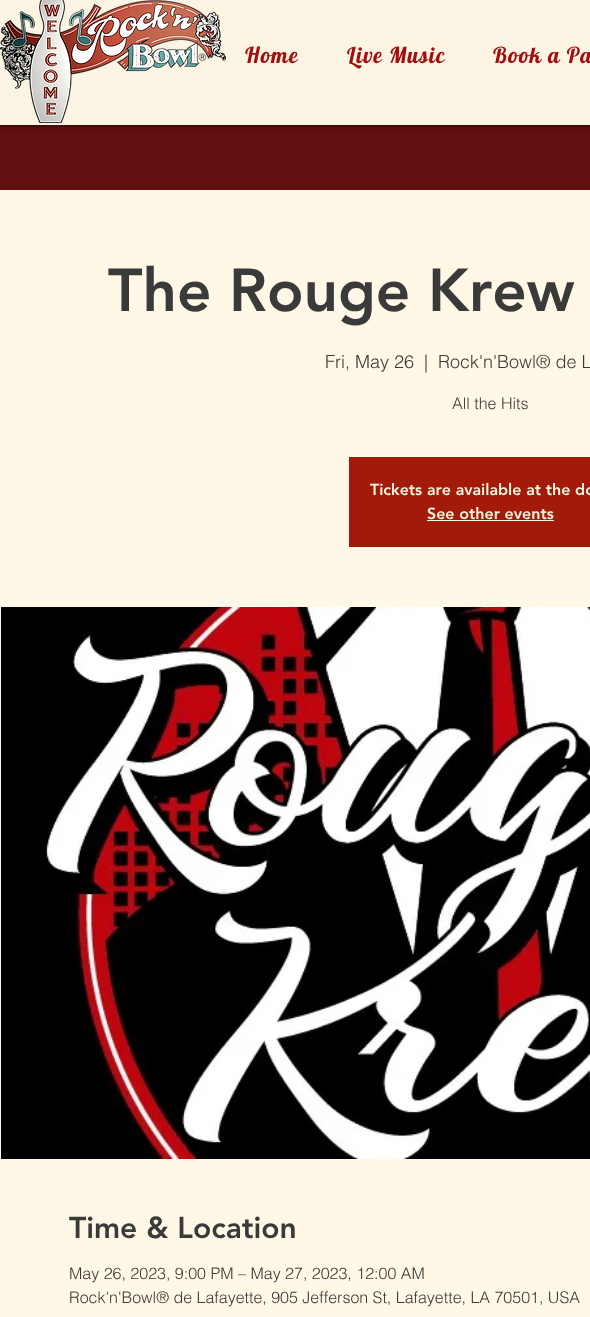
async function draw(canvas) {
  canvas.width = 590
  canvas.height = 1317
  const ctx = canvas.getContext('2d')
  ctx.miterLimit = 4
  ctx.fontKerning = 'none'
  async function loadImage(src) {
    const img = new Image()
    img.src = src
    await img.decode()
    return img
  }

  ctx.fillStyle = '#611010'
  ctx.fillRect(0, 0, 590, 1317)
  ctx.fillStyle = '#00000099'
  ctx.filter = 'blur(2px)'
  ctx.beginPath()
  ctx.rect(0, 1, 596, 125)
  ctx.fill()
  ctx.filter = 'none'
  ctx.fillStyle = '#fcf5e3'
  ctx.fillRect(0, 0, 590, 125)
  ctx.drawImage(await loadImage('image0.png'), 0, 0, 226, 123)
  ctx.letterSpacing = '1.1px'
  ctx.font = '22px Lobster'
  ctx.fillStyle = '#a20f0f'
  ctx.fillText('Home', 245, 63)
  ctx.fillText('Live Music', 347, 63)
  ctx.fillText('Book a Pa', 493, 63)
  ctx.fillStyle = '#fff8e6'
  ctx.fillRect(0, 190, 590, 1127)
  ctx.letterSpacing = '0px'
  ctx.font = '900 60px "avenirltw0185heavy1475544"'
  ctx.fillStyle = '#3b3a3a'
  ctx.fillText('The Rouge Krew', 108, 311)
  ctx.font = '300 18px helvetica'
  ctx.fillText('Fri, May 26', 325, 368)
  ctx.fillText('|', 424, 368)
  ctx.fillText('Rock\'n\'Bowl® de L', 438, 368)
  ctx.font = '300 16px helvetica'
  ctx.fillText('All the Hits', 452, 409)
  ctx.fillStyle = '#a31a08'
  ctx.fillRect(349, 457, 241, 90)
  ctx.font = '900 16px "avenirltw0185heavy1475544"'
  ctx.fillStyle = '#f7f5e1'
  ctx.fillText('Tickets are available at the do', 370, 495)
  ctx.fillText('See other events', 427, 519)
  ctx.fillRect(427, 520, 127, 1)
  ctx.drawImage(await loadImage('image1.png'), 1, 607, 589, 552)
  ctx.font = '900 30px "avenirltw0185heavy1475544"'
  ctx.fillStyle = '#3b3a3a'
  ctx.fillText('Time & Location', 69, 1238)
  ctx.font = '300 16px helvetica'
  ctx.fillText('May 26, 2023, 9:00 PM – May 27, 2023, 12:00 AM', 69, 1279)
  ctx.fillText('Rock\'n\'Bowl® de Lafayette, 905 Jefferson St, Lafayette, LA 70501, USA', 69, 1303)
}

draw(document.querySelector('canvas'))
